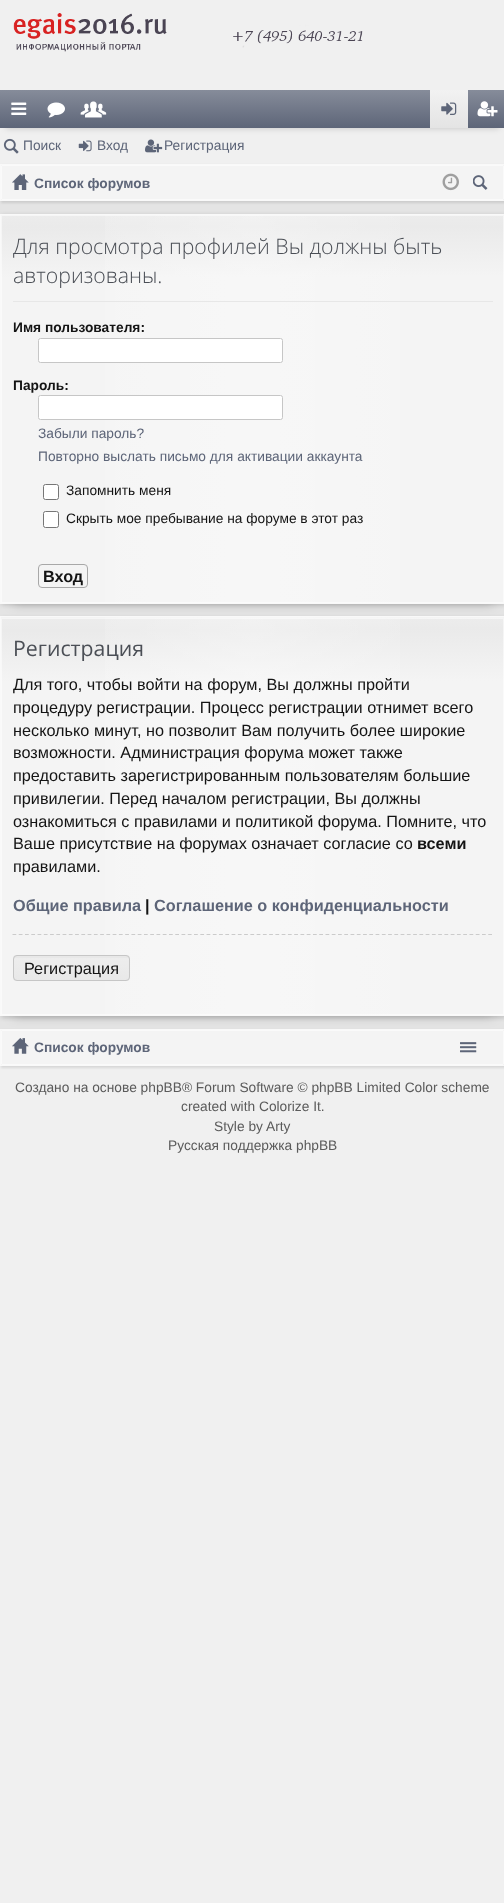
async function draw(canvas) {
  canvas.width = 504
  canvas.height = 1903
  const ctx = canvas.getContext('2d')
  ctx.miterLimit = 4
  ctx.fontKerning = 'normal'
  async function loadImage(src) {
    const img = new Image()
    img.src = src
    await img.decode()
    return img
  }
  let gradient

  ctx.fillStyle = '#f0f0f0'
  ctx.fillRect(0, 0, 504, 1903)
  ctx.drawImage(await loadImage('image0.png'), 13, 13, 350, 39)
  ctx.fillStyle = '#00000033'
  ctx.filter = 'blur(3px)'
  ctx.beginPath()
  ctx.rect(6, 103, 493, 25)
  ctx.fill()
  ctx.filter = 'none'
  gradient = ctx.createLinearGradient(253, 90, 253, 128)
  gradient.addColorStop(0, '#868c9a')
  gradient.addColorStop(1, '#5d6578')
  ctx.fillStyle = gradient
  ctx.fillRect(0, 90, 504, 38)
  ctx.drawImage(await loadImage('image1.png'), 11, 102, 16, 13)
  ctx.drawImage(await loadImage('image2.png'), 47, 102, 18, 16)
  ctx.drawImage(await loadImage('image3.png'), 80, 101, 27, 17)
  gradient = ctx.createLinearGradient(449, 90, 449, 128)
  gradient.addColorStop(0, '#f2f2f2')
  gradient.addColorStop(1, '#e4e4e4')
  ctx.fillStyle = gradient
  ctx.fillRect(430, 90, 38, 38)
  ctx.drawImage(await loadImage('image4.png'), 441, 102, 16, 13)
  ctx.drawImage(await loadImage('image5.png'), 477, 101, 21, 16)
  ctx.drawImage(await loadImage('image6.png'), 3, 138, 16, 16)
  ctx.font = '13.75px Liberation Sans'
  ctx.fillStyle = '#5d6578'
  ctx.fillText('Поиск', 23, 150)
  ctx.drawImage(await loadImage('image7.png'), 78, 140, 14, 12)
  ctx.fillText('Вход', 97, 150)
  ctx.drawImage(await loadImage('image8.png'), 145, 139, 18, 14)
  ctx.fillText('Регистрация', 164, 150)
  ctx.fillStyle = '#e4e4e4'
  ctx.fillRect(0, 201, 504, 828)
  ctx.fillStyle = '#0000001a'
  ctx.filter = 'blur(1px)'
  ctx.beginPath()
  ctx.rect(1, 165, 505, 38)
  ctx.fill()
  ctx.filter = 'none'
  ctx.fillStyle = '#f4f4f4'
  ctx.beginPath()
  ctx.rect(1.5, 165.5, 502, 34)
  ctx.fill()
  ctx.strokeStyle = '#fafafa'
  ctx.stroke()
  ctx.strokeStyle = '#f9f9f9'
  ctx.strokeRect(0.5, 164.5, 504, 36)
  ctx.drawImage(await loadImage('image9.png'), 12, 174, 17, 16)
  ctx.font = 'bold 13.75px Liberation Sans'
  ctx.fillStyle = '#5d6578'
  ctx.fillText('Список форумов', 34, 188)
  ctx.drawImage(await loadImage('image10.png'), 442, 173, 17, 18)
  ctx.drawImage(await loadImage('image11.png'), 473, 175, 15, 15)
  ctx.fillStyle = '#00000033'
  ctx.filter = 'blur(6px)'
  ctx.beginPath()
  ctx.rect(13, 239, 480, 365)
  ctx.fill()
  ctx.filter = 'none'
  ctx.fillStyle = '#00000026'
  ctx.filter = 'blur(2px)'
  ctx.beginPath()
  ctx.rect(1, 215, 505, 390)
  ctx.fill()
  ctx.filter = 'none'
  gradient = ctx.createLinearGradient(252, 215, 253, 603)
  gradient.addColorStop(0, '#ececec')
  gradient.addColorStop(0.03, '#eaeaea')
  gradient.addColorStop(0.16, '#f4f4f4')
  ctx.fillStyle = gradient
  ctx.fillRect(1, 215, 503, 388)
  gradient = ctx.createLinearGradient(1.2, 409, 504, 409)
  gradient.addColorStop(0, '#ffffff00')
  gradient.addColorStop(0.5, '#ffffff4d')
  gradient.addColorStop(1, '#ffffff00')
  ctx.fillStyle = gradient
  ctx.fillRect(105, 215, 295, 388)
  ctx.strokeStyle = '#ffffff80'
  ctx.strokeRect(1.5, 215.5, 502, 387)
  ctx.strokeStyle = '#f9f9f9'
  ctx.strokeRect(0.5, 214.5, 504, 389)
  ctx.fillStyle = '#e7e7e7'
  ctx.fillRect(13, 301, 480, 1)
  ctx.save()
  ctx.beginPath()
  ctx.rect(13, 220, 480, 378)
  ctx.clip()
  ctx.font = '300 21.25px Open Sans'
  ctx.fillStyle = '#4b4f56'
  ctx.fillText('Для просмотра профилей Вы должны быть', 13, 254)
  ctx.restore()
  ctx.font = '300 21.25px Open Sans'
  ctx.fillStyle = '#4b4f56'
  ctx.fillText('авторизованы.', 13, 283)
  ctx.font = 'bold 13.75px Liberation Sans'
  ctx.fillStyle = '#141414'
  ctx.fillText('Имя пользователя:', 13, 332)
  ctx.fillStyle = '#fff'
  ctx.beginPath()
  ctx.roundRect(38.5, 338.5, 244, 24, 2)
  ctx.fill()
  ctx.strokeStyle = '#c6c6c6'
  ctx.stroke()
  ctx.fillStyle = '#141414'
  ctx.fillText('Пароль:', 13, 390)
  ctx.fillStyle = '#fff'
  ctx.beginPath()
  ctx.roundRect(38.5, 395.5, 244, 24, 2)
  ctx.fill()
  ctx.stroke()
  ctx.font = '13.75px Liberation Sans'
  ctx.fillStyle = '#5d6578'
  ctx.fillText('Забыли пароль?', 38, 438)
  ctx.fillText('Повторно выслать письмо для активации аккаунта', 38, 461)
  ctx.fillStyle = '#fff'
  ctx.beginPath()
  ctx.roundRect(43.5, 484.5, 15, 15, 2)
  ctx.fill()
  ctx.strokeStyle = '#767676'
  ctx.stroke()
  ctx.fillStyle = '#141414'
  ctx.fillText('Запомнить меня', 66, 495)
  ctx.fillStyle = '#fff'
  ctx.beginPath()
  ctx.roundRect(43.5, 511.5, 15, 16, 2)
  ctx.fill()
  ctx.stroke()
  ctx.fillStyle = '#141414'
  ctx.fillText('Скрыть мое пребывание на форуме в этот раз', 66, 523)
  ctx.beginPath()
  ctx.roundRect(38.5, 564.5, 49, 23, 3.5)
  ctx.strokeStyle = '#a8a8a8'
  ctx.stroke()
  ctx.font = 'bold 16.25px Liberation Sans'
  ctx.fillText('Вход', 43, 582)
  ctx.fillStyle = '#00000033'
  ctx.filter = 'blur(6px)'
  ctx.beginPath()
  ctx.rect(13, 641, 480, 375)
  ctx.fill()
  ctx.filter = 'none'
  ctx.fillStyle = '#00000026'
  ctx.filter = 'blur(2px)'
  ctx.beginPath()
  ctx.rect(1, 618, 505, 400)
  ctx.fill()
  ctx.filter = 'none'
  ctx.fillStyle = '#f4f4f4'
  ctx.fillRect(1, 617, 503, 1)
  gradient = ctx.createLinearGradient(252, 618, 253, 1015)
  gradient.addColorStop(0, '#ececec')
  gradient.addColorStop(0.03, '#eaeaea')
  gradient.addColorStop(0.16, '#f4f4f4')
  ctx.fillStyle = gradient
  ctx.fillRect(1, 618, 503, 397)
  gradient = ctx.createLinearGradient(1.2, 816, 504, 816)
  gradient.addColorStop(0, '#ffffff00')
  gradient.addColorStop(0.5, '#ffffff4d')
  gradient.addColorStop(1, '#ffffff00')
  ctx.fillStyle = gradient
  ctx.fillRect(105, 617, 295, 398)
  ctx.strokeStyle = '#ffffff80'
  ctx.strokeRect(1.5, 618.5, 502, 396)
  ctx.strokeStyle = '#f9f9f9'
  ctx.strokeRect(0.5, 616.5, 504, 399)
  ctx.font = '21.25px Open Sans'
  ctx.fillStyle = '#4b4f56'
  ctx.fillText('Регистрация', 13, 656)
  ctx.save()
  ctx.beginPath()
  ctx.rect(13, 674, 480, 205)
  ctx.clip()
  ctx.font = '16.25px Liberation Sans'
  ctx.fillStyle = '#141414'
  ctx.fillText('Для того, чтобы войти на форум, Вы должны пройти', 13, 690)
  ctx.restore()
  ctx.font = '16.25px Liberation Sans'
  ctx.fillStyle = '#141414'
  ctx.fillText('процедуру регистрации. Процесс регистрации отнимет всего', 13, 713)
  ctx.fillText('несколько минут, но позволит Вам получить более широкие', 13, 736)
  ctx.fillText('возможности. Администрация форума может также', 13, 758)
  ctx.fillText('предоставить зарегистрированным пользователям большие', 13, 781)
  ctx.fillText('привилегии. Перед началом регистрации, Вы должны', 13, 804)
  ctx.fillText('ознакомиться с правилами и политикой форума. Помните, что', 13, 827)
  ctx.fillText('Ваше присутствие на форумах означает согласие со', 13, 849)
  ctx.font = 'bold 16.25px Liberation Sans'
  ctx.fillText('всеми', 417, 849)
  ctx.font = '16.25px Liberation Sans'
  ctx.fillText('правилами.', 13, 872)
  ctx.font = 'bold 16.25px Liberation Sans'
  ctx.fillStyle = '#5d6578'
  ctx.fillText('Общие правила', 13, 911)
  ctx.fillStyle = '#141414'
  ctx.fillText('|', 145, 911)
  ctx.fillStyle = '#5d6578'
  ctx.fillText('Соглашение о конфиденциальности', 154, 911)
  ctx.beginPath()
  ctx.moveTo(12.5, 934.5)
  ctx.lineTo(492.5, 934.5)
  ctx.strokeStyle = '#cbcbcb'
  ctx.lineWidth = 1.2
  ctx.setLineDash([3.75, 2.51])
  ctx.stroke()
  ctx.fillStyle = '#e8e8e8'
  ctx.beginPath()
  ctx.roundRect(13, 955, 117, 26, 4)
  ctx.fill()
  ctx.save()
  ctx.beginPath()
  ctx.roundRect(13, 955, 117, 26, 4)
  ctx.clip()
  gradient = ctx.createLinearGradient(71, 958, 71, 981)
  gradient.addColorStop(0, '#ededed')
  gradient.addColorStop(1, '#e8e8e8')
  ctx.fillStyle = gradient
  ctx.beginPath()
  ctx.roundRect(13, 958, 117, 23, [0, 0, 4, 4])
  ctx.fill()
  ctx.restore()
  ctx.beginPath()
  ctx.roundRect(13.5, 955.5, 116, 25, 3.5)
  ctx.strokeStyle = '#c6c6c6'
  ctx.lineWidth = 1
  ctx.setLineDash([])
  ctx.stroke()
  ctx.font = '16.25px Liberation Sans'
  ctx.fillStyle = '#141414'
  ctx.fillText('Регистрация', 24, 974)
  ctx.fillStyle = '#0000001a'
  ctx.filter = 'blur(1px)'
  ctx.beginPath()
  ctx.rect(1, 1030, 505, 38)
  ctx.fill()
  ctx.filter = 'none'
  ctx.fillStyle = '#f4f4f4'
  ctx.beginPath()
  ctx.rect(1.5, 1030.5, 502, 34)
  ctx.fill()
  ctx.strokeStyle = '#fafafa'
  ctx.stroke()
  ctx.strokeStyle = '#f9f9f9'
  ctx.strokeRect(0.5, 1029.5, 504, 36)
  ctx.drawImage(await loadImage('image12.png'), 12, 1038, 17, 16)
  ctx.font = 'bold 13.75px Liberation Sans'
  ctx.fillStyle = '#5d6578'
  ctx.fillText('Список форумов', 34, 1052)
  ctx.drawImage(await loadImage('image13.png'), 460, 1042, 17, 11)
  ctx.font = '13.75px Liberation Sans'
  ctx.fillStyle = '#5b5b5b'
  ctx.fillText('Создано на основе phpBB® Forum Software © phpBB Limited Color scheme', 15, 1092)
  ctx.fillText('created with Colorize It.', 181, 1111)
  ctx.fillText('Style by Arty', 214, 1131)
  ctx.fillText('Русская поддержка phpBB', 168, 1150)
}

draw(document.querySelector('canvas'))
